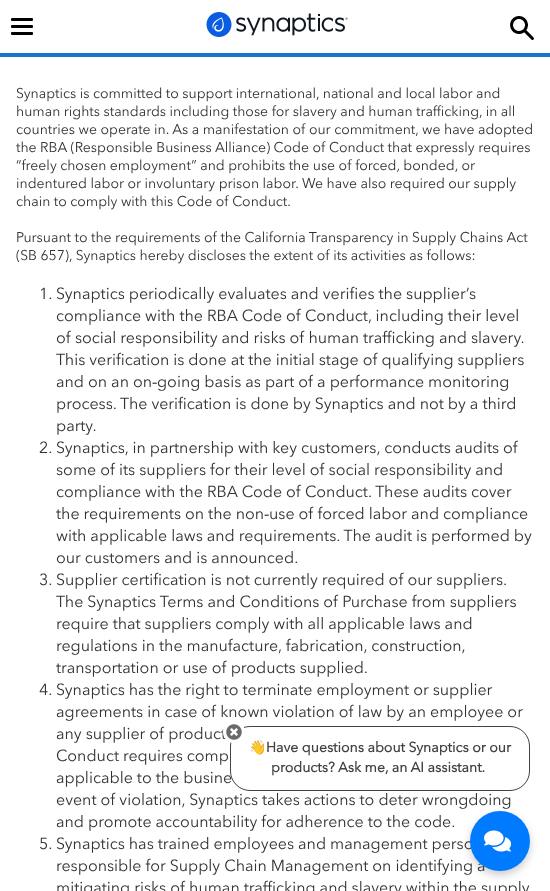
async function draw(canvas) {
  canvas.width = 550
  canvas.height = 891
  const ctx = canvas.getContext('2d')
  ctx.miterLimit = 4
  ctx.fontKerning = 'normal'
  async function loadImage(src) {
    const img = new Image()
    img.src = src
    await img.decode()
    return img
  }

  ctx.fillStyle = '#fff'
  ctx.fillRect(0, 0, 550, 891)
  ctx.fillStyle = '#1a75cf'
  ctx.fillRect(0, 53, 550, 4)
  ctx.fillStyle = '#000'
  ctx.beginPath()
  ctx.roundRect(11, 18, 22, 3, 1)
  ctx.fill()
  ctx.beginPath()
  ctx.roundRect(11, 25, 22, 3, 1)
  ctx.fill()
  ctx.beginPath()
  ctx.roundRect(11, 32, 22, 3, 1)
  ctx.fill()
  ctx.drawImage(await loadImage('image0.png'), 206, 12, 142, 25)
  ctx.drawImage(await loadImage('image1.png'), 510, 16, 24, 24)
  ctx.font = '14px Avenir Next'
  ctx.fillStyle = '#333'
  ctx.fillText('Synaptics is committed to support international, national and local labor and', 16, 98)
  ctx.fillText('human rights standards including those for slavery and human trafficking, in all', 16, 116)
  ctx.fillText('countries we operate in. As a manifestation of our commitment, we have adopted', 16, 134)
  ctx.fillText('the RBA (Responsible Business Alliance) Code of Conduct that expressly requires', 16, 152)
  ctx.fillText('“freely chosen employment” and prohibits the use of forced, bonded, or', 16, 170)
  ctx.fillText('indentured labor or involuntary prison labor. We have also required our supply', 16, 188)
  ctx.fillText('chain to comply with this Code of Conduct.', 16, 206)
  ctx.fillText('Pursuant to the requirements of the California Transparency in Supply Chains Act', 16, 242)
  ctx.fillText('(SB 657), Synaptics hereby discloses the extent of its activities as follows:', 16, 260)
  ctx.font = '16px Avenir Next'
  ctx.fillText('1. Synaptics periodically evaluates and verifies the supplier’s', 39, 299)
  ctx.fillText('compliance with the RBA Code of Conduct, including their level', 56, 321)
  ctx.fillText('of social responsibility and risks of human trafficking and slavery.', 56, 343)
  ctx.fillText('This verification is done at the initial stage of qualifying suppliers', 56, 365)
  ctx.fillText('and on an on', 56, 387)
  ctx.font = '16px Liberation Serif'
  ctx.fillText('‐', 152, 387)
  ctx.font = '16px Avenir Next'
  ctx.fillText('going basis as part of a performance monitoring', 157, 387)
  ctx.fillText('process. The verification is done by Synaptics and not by a third', 56, 409)
  ctx.fillText('party.', 56, 431)
  ctx.fillText('2. Synaptics, in partnership with key customers, conducts audits of', 39, 453)
  ctx.fillText('some of its suppliers for their level of social responsibility and', 56, 475)
  ctx.fillText('compliance with the RBA Code of Conduct. These audits cover', 56, 497)
  ctx.fillText('the requirements on the non', 56, 519)
  ctx.font = '16px Liberation Serif'
  ctx.fillText('‐', 264, 519)
  ctx.font = '16px Avenir Next'
  ctx.fillText('use of forced labor and compliance', 269, 519)
  ctx.fillText('with applicable laws and requirements. The audit is performed by', 56, 541)
  ctx.fillText('our customers and is announced.', 56, 563)
  ctx.fillText('3. Supplier certification is not currently required of our suppliers.', 39, 585)
  ctx.fillText('The Synaptics Terms and Conditions of Purchase from suppliers', 56, 607)
  ctx.fillText('require that suppliers comply with all applicable laws and', 56, 629)
  ctx.fillText('regulations in the manufacture, fabrication, construction,', 56, 651)
  ctx.fillText('transportation or use of products supplied.', 56, 673)
  ctx.fillText('4. Synaptics has the right to terminate employment or supplier', 39, 695)
  ctx.fillText('agreements in case of known violation of law by an employee or', 56, 717)
  ctx.fillText('any supplier of product', 56, 739)
  ctx.fillText('Conduct requires comp', 56, 761)
  ctx.fillText('applicable to the busine', 56, 783)
  ctx.fillText('event of violation, Synaptics takes actions to deter wrongdoing', 56, 805)
  ctx.fillText('and promote accountability for adherence to the code.', 56, 827)
  ctx.fillText('5. Synaptics has trained employees and management perso', 39, 849)
  ctx.fillText('responsible for Supply Chain Management on identifying a', 56, 871)
  ctx.fillText('mitigating risks of human trafficking and slavery within the supply', 56, 893)
  ctx.fillStyle = '#fff'
  ctx.beginPath()
  ctx.roundRect(230, 726, 300, 65, 20)
  ctx.fill()
  ctx.beginPath()
  ctx.roundRect(230.5, 726.5, 299, 64, 19.5)
  ctx.strokeStyle = '#000000bd'
  ctx.stroke()
  ctx.beginPath()
  ctx.arc(234, 732, 11, 0, 2 * Math.PI)
  ctx.fill()
  ctx.drawImage(await loadImage('image2.png'), 226, 724, 16, 16)
  ctx.font = 'bold 14px Noto Color Emoji'
  ctx.fillStyle = '#424242'
  ctx.fillText('👋', 249, 752)
  ctx.font = 'bold 14px Avenir Next'
  ctx.fillText('Have questions about Synaptics or our', 266, 752)
  ctx.fillText('products? Ask me, an AI assistant.', 271, 772)
  ctx.fillStyle = '#00000033'
  ctx.filter = 'blur(4px)'
  ctx.beginPath()
  ctx.roundRect(470, 815, 60, 60, 30)
  ctx.fill()
  ctx.filter = 'none'
  ctx.fillStyle = '#007bff'
  ctx.beginPath()
  ctx.arc(500, 841, 30, 0, 2 * Math.PI)
  ctx.fill()
  ctx.drawImage(await loadImage('image3.png'), 484, 830, 27, 22)
}

draw(document.querySelector('canvas'))
